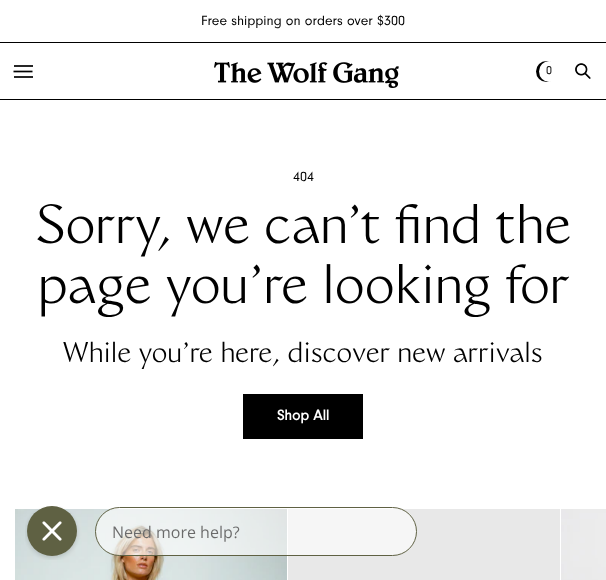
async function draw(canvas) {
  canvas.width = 606
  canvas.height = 580
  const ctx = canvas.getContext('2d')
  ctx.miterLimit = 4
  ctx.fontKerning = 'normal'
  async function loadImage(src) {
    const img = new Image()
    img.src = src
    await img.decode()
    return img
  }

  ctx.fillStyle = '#fff'
  ctx.fillRect(0, 0, 606, 580)
  ctx.fillStyle = '#000'
  ctx.fillRect(0, 42, 606, 1)
  ctx.font = '14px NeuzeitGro'
  ctx.fillText('Free shipping on orders over $300', 201, 25)
  ctx.fillRect(0, 99, 606, 1)
  ctx.fillStyle = '#262626'
  ctx.fillRect(14, 65, 19, 2)
  ctx.beginPath()
  ctx.moveTo(13.5, 71.5)
  ctx.lineTo(32.5, 71.5)
  ctx.strokeStyle = '#000'
  ctx.lineWidth = 1.7
  ctx.stroke()
  ctx.fillRect(14, 76, 19, 2)
  ctx.drawImage(await loadImage('image0.png'), 214, 62, 185, 26)
  ctx.fillStyle = '#000'
  ctx.beginPath()
  ctx.arc(546.5, 71.5, 10.5, 0, 2 * Math.PI)
  ctx.fill()
  ctx.fillStyle = '#fff'
  ctx.beginPath()
  ctx.arc(549.5, 71.5, 10.5, 0, 2 * Math.PI)
  ctx.fill()
  ctx.font = '12px NeuzeitGro'
  ctx.fillStyle = '#000'
  ctx.fillText('0', 546, 74)
  ctx.drawImage(await loadImage('image1.png'), 575, 63, 16, 16)
  ctx.font = '14px NeuzeitGro'
  ctx.fillText('404', 293, 181)
  ctx.font = '50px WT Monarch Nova'
  ctx.fillText('Sorry, we can\'t find the', 35, 243)
  ctx.fillText('page you\'re looking for', 37, 303)
  ctx.font = '26px WT Monarch Nova'
  ctx.fillText('While you\'re here, discover new arrivals', 63, 362)
  ctx.fillRect(243, 394, 120, 45)
  ctx.font = 'bold 15px NeuzeitGro'
  ctx.fillStyle = '#fff'
  ctx.fillText('Shop All', 277, 420)
  ctx.drawImage(await loadImage('image2.png'), 15, 509, 272, 71)
  ctx.fillStyle = '#e8e8e8'
  ctx.fillRect(288, 509, 272, 71)
  ctx.drawImage(await loadImage('image3.png'), 561, 509, 45, 71)
  ctx.drawImage(await loadImage('image4.png'), 25, 506, 392, 54)
}

draw(document.querySelector('canvas'))
